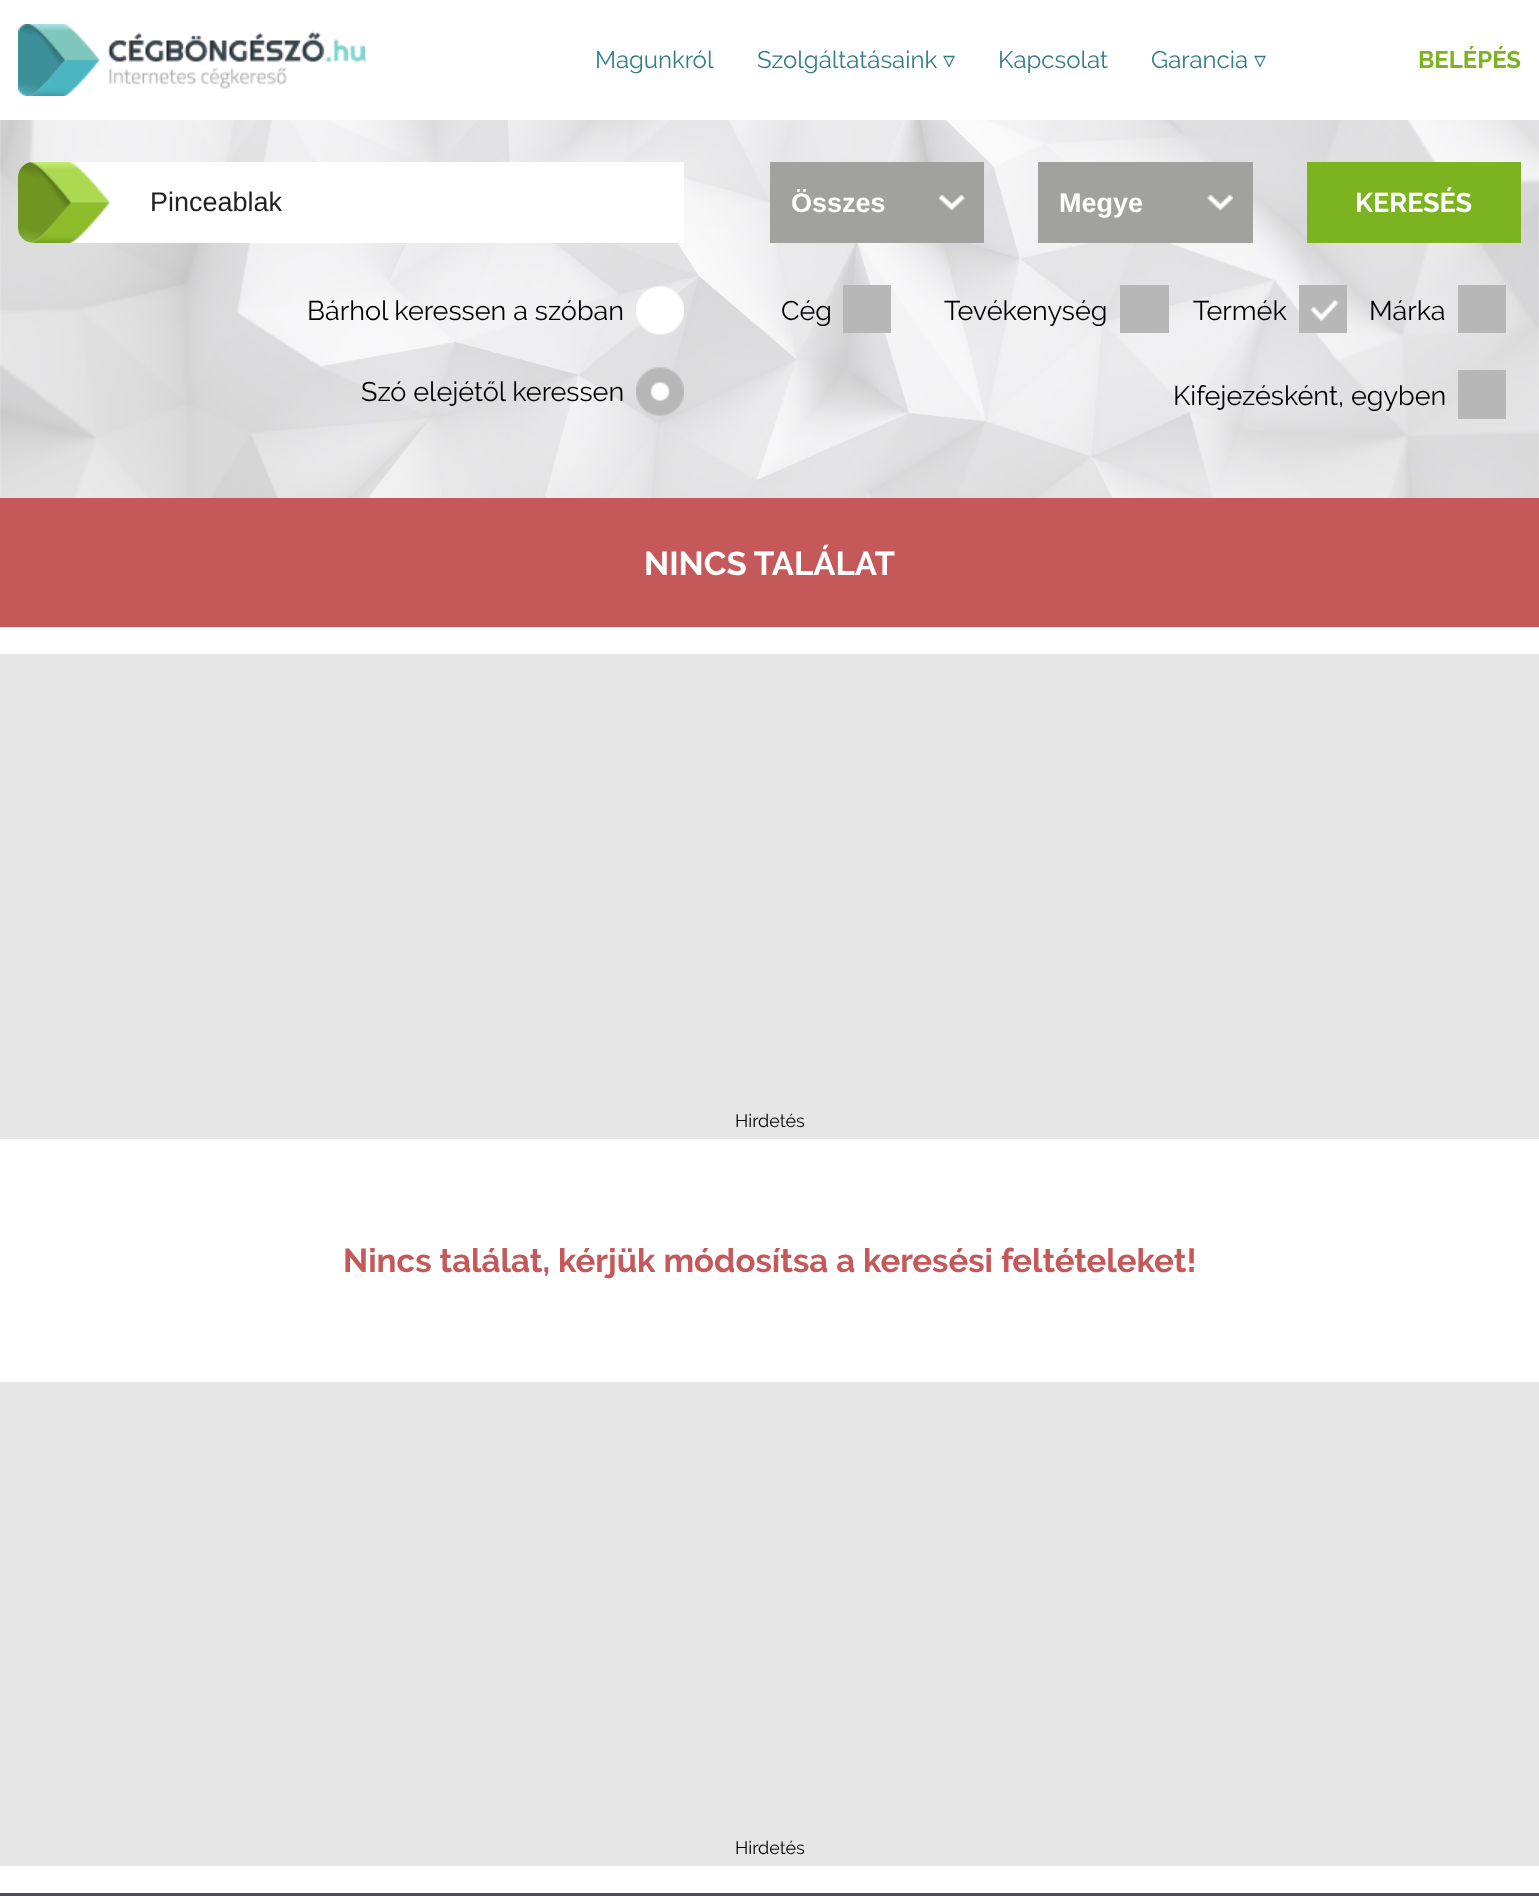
async function draw(canvas) {
  canvas.width = 1539
  canvas.height = 1896
  const ctx = canvas.getContext('2d')
  ctx.miterLimit = 4
  ctx.fontKerning = 'normal'
  async function loadImage(src) {
    const img = new Image()
    img.src = src
    await img.decode()
    return img
  }

  ctx.fillStyle = '#fff'
  ctx.fillRect(0, 0, 1539, 1896)
  ctx.drawImage(await loadImage('image0.png'), 18, 24, 347, 72)
  ctx.font = '24px Raleway'
  ctx.fillStyle = '#317e87'
  ctx.fillText('Magunkról', 595, 68)
  ctx.fillText('Szolgáltatásaink', 757, 68)
  ctx.font = '24px DejaVu Sans'
  ctx.fillText('▿', 943, 68)
  ctx.font = '24px Raleway'
  ctx.fillText('Kapcsolat', 998, 68)
  ctx.fillText('Garancia', 1151, 68)
  ctx.font = '24px DejaVu Sans'
  ctx.fillText('▿', 1254, 68)
  ctx.font = 'bold 24px Raleway'
  ctx.fillStyle = '#7cb320'
  ctx.fillText('BELÉPÉS', 1418, 68)
  ctx.drawImage(await loadImage('image1.png'), 0, 120, 1539, 378)
  ctx.fillStyle = '#fff'
  ctx.beginPath()
  ctx.roundRect(18, 162, 666, 81, [15, 0, 0, 15])
  ctx.fill()
  ctx.drawImage(await loadImage('image2.png'), 18, 162, 92, 81)
  ctx.font = '27px Liberation Sans'
  ctx.fillStyle = '#222'
  ctx.fillText('Pinceablak', 150, 211)
  ctx.fillStyle = '#a1a1a0'
  ctx.fillRect(770, 162, 214, 81)
  ctx.drawImage(await loadImage('image3.png'), 939, 195, 26, 15)
  ctx.font = 'bold 27px Liberation Sans'
  ctx.fillStyle = '#fff'
  ctx.fillText('Összes', 791, 212)
  ctx.fillStyle = '#a1a1a0'
  ctx.fillRect(1038, 162, 215, 81)
  ctx.drawImage(await loadImage('image4.png'), 1207, 195, 26, 15)
  ctx.fillStyle = '#fff'
  ctx.fillText('Megye', 1059, 212)
  ctx.fillStyle = '#7cb320'
  ctx.fillRect(1307, 162, 214, 81)
  ctx.font = 'bold 27px Raleway'
  ctx.fillStyle = '#fff'
  ctx.fillText('KERESÉS', 1355, 212)
  ctx.font = '27px Raleway'
  ctx.fillStyle = '#000'
  ctx.fillText('Bárhol keressen a szóban', 307, 320)
  ctx.drawImage(await loadImage('image5.png'), 636, 286, 48, 49)
  ctx.fillText('Szó elejétől keressen', 361, 401)
  ctx.drawImage(await loadImage('image6.png'), 636, 367, 48, 49)
  ctx.fillText('Cég', 781, 320)
  ctx.fillStyle = '#b7b7b7'
  ctx.fillRect(843, 285, 48, 48)
  ctx.fillStyle = '#000'
  ctx.fillText('Tevékenység', 944, 320)
  ctx.fillStyle = '#b7b7b7'
  ctx.fillRect(1120, 285, 49, 48)
  ctx.fillStyle = '#000'
  ctx.fillText('Termék', 1193, 320)
  ctx.drawImage(await loadImage('image7.png'), 1299, 285, 48, 48)
  ctx.fillText('Márka', 1369, 320)
  ctx.fillStyle = '#b7b7b7'
  ctx.fillRect(1458, 285, 48, 48)
  ctx.fillStyle = '#000'
  ctx.fillText('Kifejezésként, egyben', 1173, 405)
  ctx.fillStyle = '#b7b7b7'
  ctx.fillRect(1458, 370, 48, 49)
  ctx.fillStyle = '#c55858'
  ctx.fillRect(0, 498, 1539, 129)
  ctx.font = 'bold 33px Raleway'
  ctx.fillStyle = '#fff'
  ctx.fillText('NINCS TALÁLAT', 644, 575)
  ctx.fillStyle = '#e6e6e6'
  ctx.fillRect(0, 654, 1539, 485)
  ctx.font = '18px Raleway'
  ctx.fillStyle = '#000'
  ctx.fillText('Hirdetés', 735, 1127)
  ctx.font = 'bold 33px Raleway'
  ctx.fillStyle = '#c55858'
  ctx.fillText('Nincs találat, kérjük módosítsa a keresési feltételeket!', 343, 1272)
  ctx.fillStyle = '#e6e6e6'
  ctx.fillRect(0, 1382, 1539, 484)
  ctx.font = '18px Raleway'
  ctx.fillStyle = '#000'
  ctx.fillText('Hirdetés', 735, 1854)
  ctx.fillStyle = '#474f59'
  ctx.fillRect(0, 1893, 1539, 3)
}

draw(document.querySelector('canvas'))
